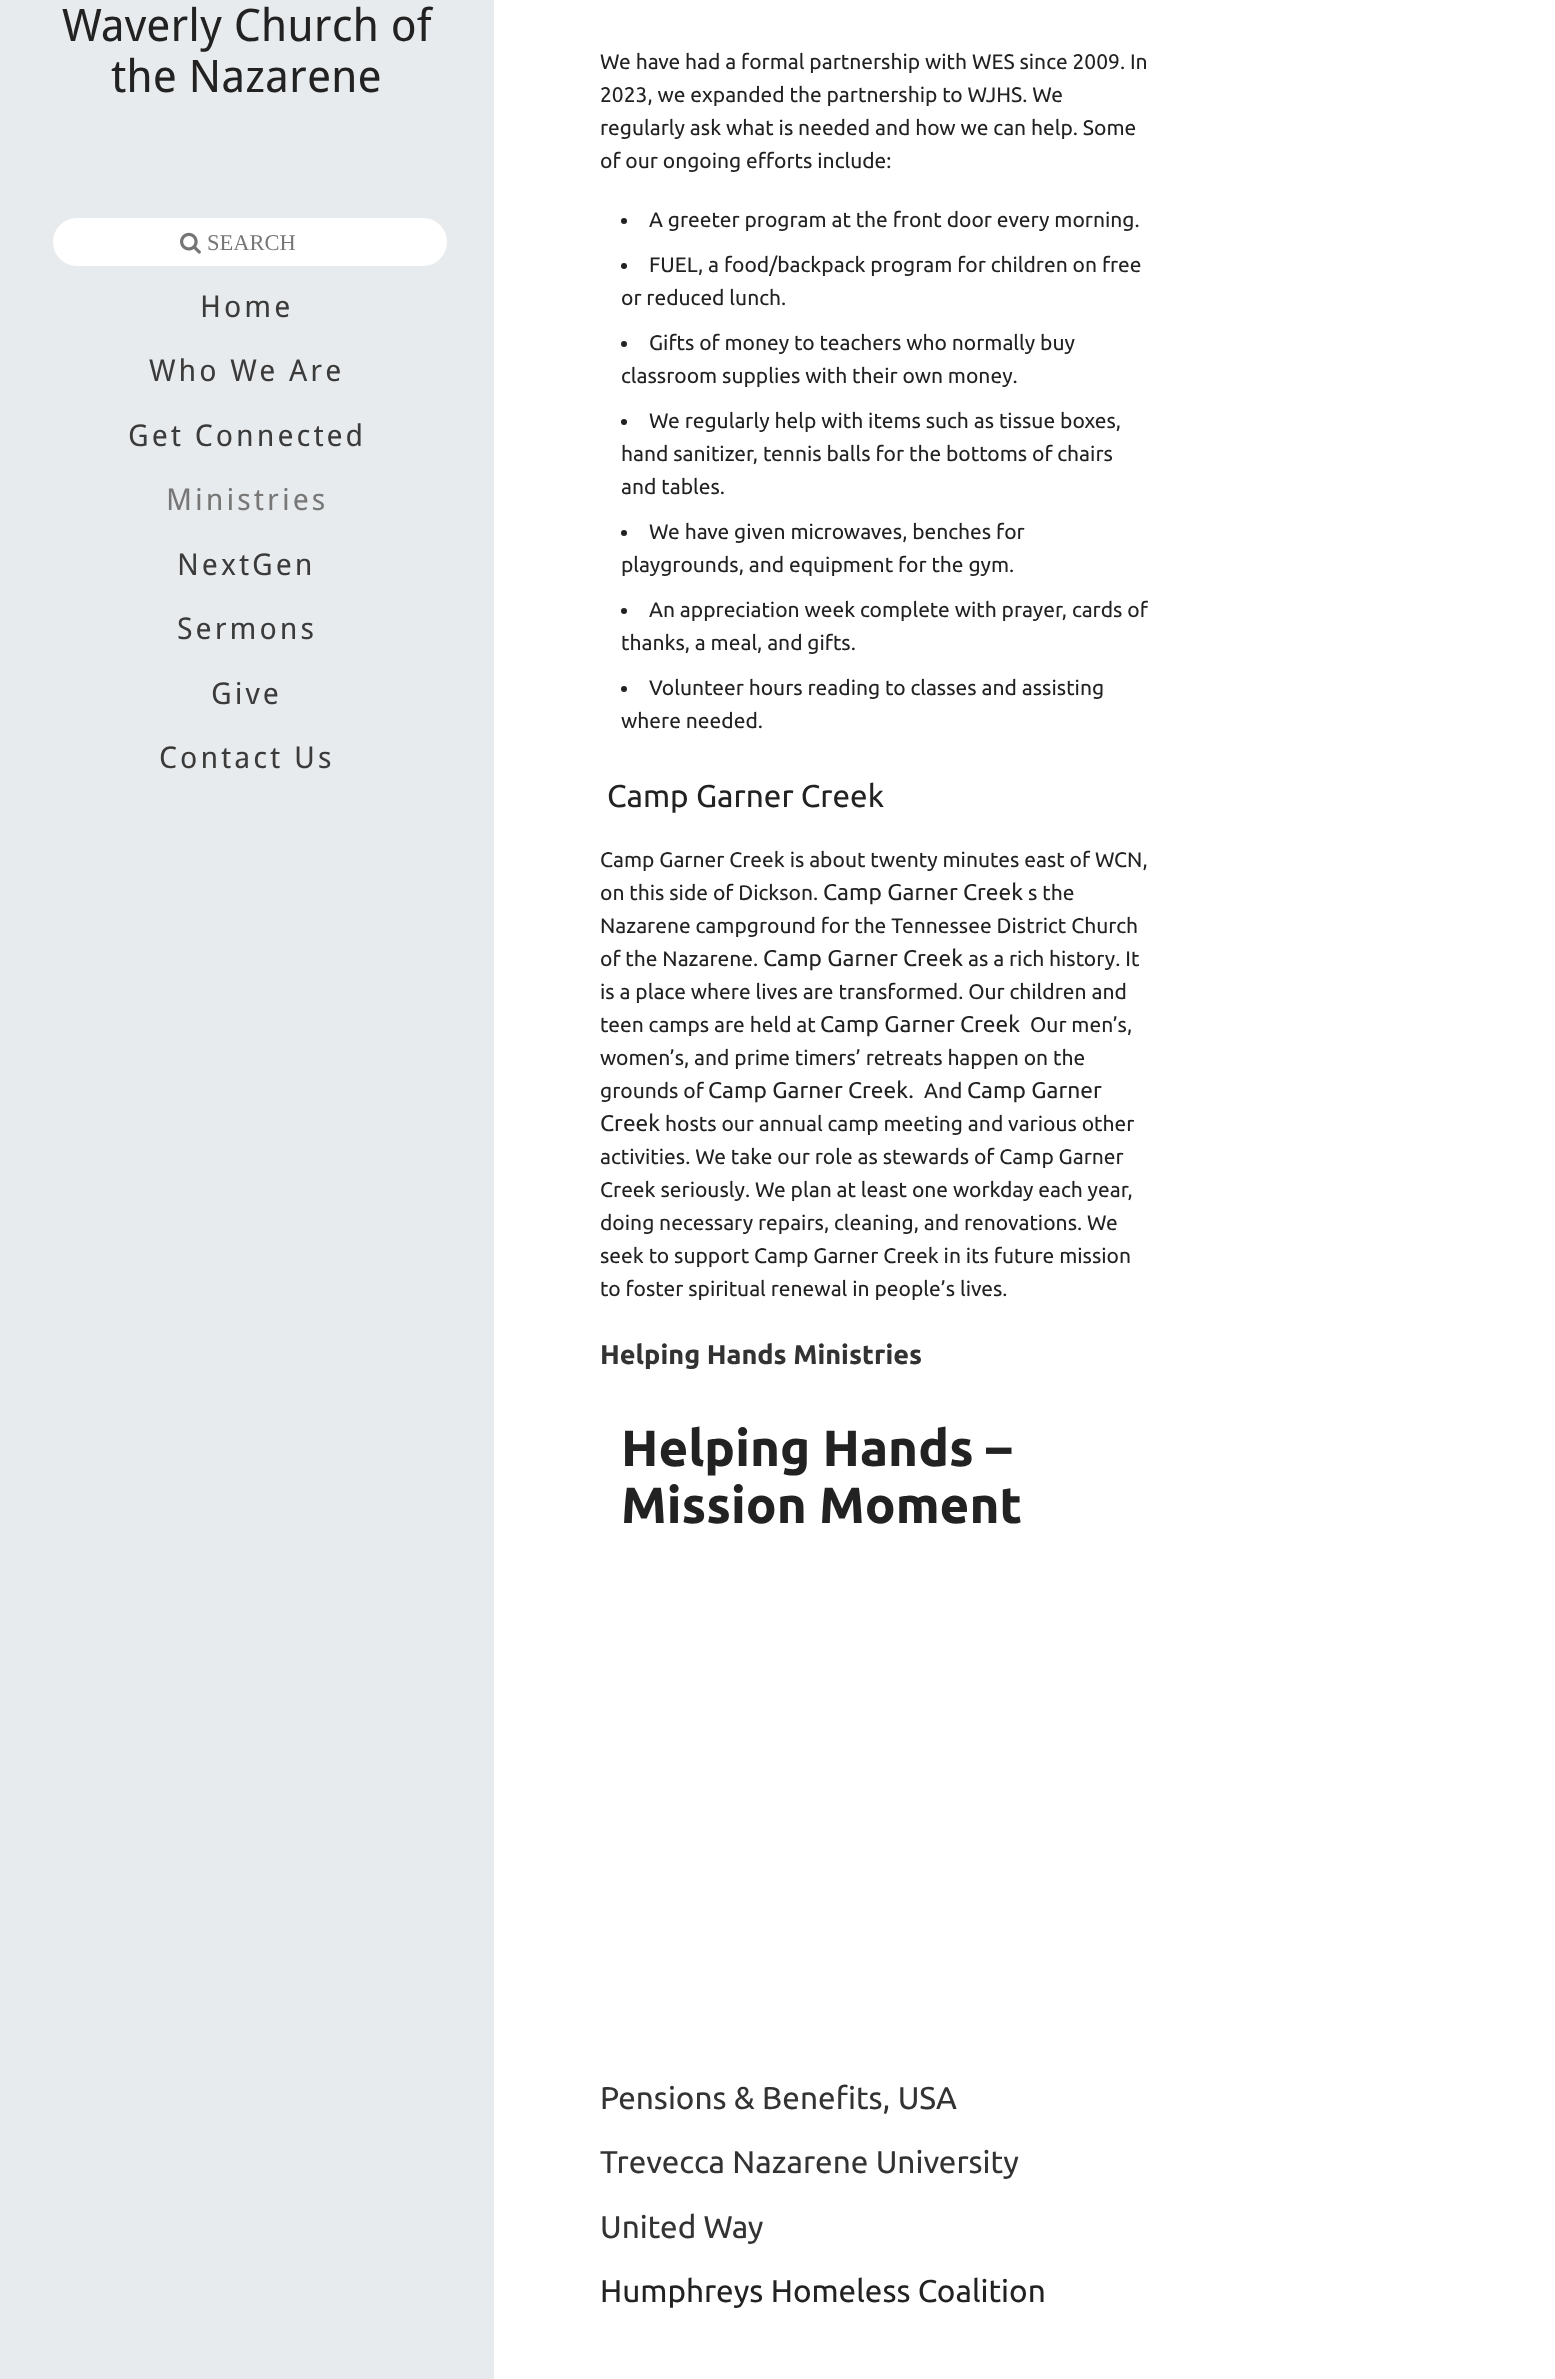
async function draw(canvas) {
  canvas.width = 1555
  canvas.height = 2379
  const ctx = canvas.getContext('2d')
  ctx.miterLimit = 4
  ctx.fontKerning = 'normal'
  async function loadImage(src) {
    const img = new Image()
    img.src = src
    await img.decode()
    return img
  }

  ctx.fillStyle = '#fff'
  ctx.fillRect(0, 0, 1555, 2379)
  ctx.fillStyle = '#e8ebed'
  ctx.fillRect(0, 0, 494, 2379)
  ctx.font = '45px Droid Sans'
  ctx.fillStyle = '#222'
  ctx.fillText('Waverly Church of', 62, 41)
  ctx.fillText('the Nazarene', 111, 92)
  ctx.fillStyle = '#fff'
  ctx.beginPath()
  ctx.roundRect(53, 218, 394, 48, 24)
  ctx.fill()
  ctx.drawImage(await loadImage('image0.png'), 180, 232, 21, 22)
  ctx.font = '22.5px Liberation Serif'
  ctx.fillStyle = '#777'
  ctx.fillText('SEARCH', 207, 250)
  ctx.letterSpacing = '3px'
  ctx.font = '30px Droid Sans'
  ctx.fillStyle = '#3b3b3b'
  ctx.fillText('Home', 200, 317)
  ctx.fillText('Who We Are', 149, 381)
  ctx.fillText('Get Connected', 128, 446)
  ctx.fillStyle = '#777'
  ctx.fillText('Ministries', 166, 510)
  ctx.fillStyle = '#3b3b3b'
  ctx.fillText('NextGen', 177, 575)
  ctx.fillText('Sermons', 177, 639)
  ctx.fillText('Give', 211, 704)
  ctx.fillText('Contact Us', 159, 768)
  ctx.letterSpacing = '0px'
  ctx.font = '21px Ubuntu'
  ctx.fillStyle = '#222'
  ctx.fillText('We have had a formal partnership with WES since 2009. In', 600, 69)
  ctx.fillText('2023, we expanded the partnership to WJHS. We', 600, 102)
  ctx.fillText('regularly ask what is needed and how we can help. Some', 600, 135)
  ctx.fillText('of our ongoing efforts include:', 600, 168)
  ctx.beginPath()
  ctx.arc(624, 221, 3, 0, 2 * Math.PI)
  ctx.fill()
  ctx.fillText('A greeter program at the front door every morning.', 649, 227)
  ctx.beginPath()
  ctx.arc(624, 266, 3, 0, 2 * Math.PI)
  ctx.fill()
  ctx.fillText('FUEL, a food/backpack program for children on free', 649, 272)
  ctx.fillText('or reduced lunch.', 621, 305)
  ctx.beginPath()
  ctx.arc(624, 344, 3, 0, 2 * Math.PI)
  ctx.fill()
  ctx.fillText('Gifts of money to teachers who normally buy', 649, 350)
  ctx.fillText('classroom supplies with their own money.', 621, 383)
  ctx.beginPath()
  ctx.arc(624, 422, 3, 0, 2 * Math.PI)
  ctx.fill()
  ctx.fillText('We regularly help with items such as tissue boxes,', 649, 428)
  ctx.fillText('hand sanitizer, tennis balls for the bottoms of chairs', 621, 461)
  ctx.fillText('and tables.', 621, 494)
  ctx.beginPath()
  ctx.arc(624, 533, 3, 0, 2 * Math.PI)
  ctx.fill()
  ctx.fillText('We have given microwaves, benches for', 649, 539)
  ctx.fillText('playgrounds, and equipment for the gym.', 621, 572)
  ctx.beginPath()
  ctx.arc(624, 611, 3, 0, 2 * Math.PI)
  ctx.fill()
  ctx.fillText('An appreciation week complete with prayer, cards of', 649, 617)
  ctx.fillText('thanks, a meal, and gifts.', 621, 650)
  ctx.beginPath()
  ctx.arc(624, 689, 3, 0, 2 * Math.PI)
  ctx.fill()
  ctx.fillText('Volunteer hours reading to classes and assisting', 649, 695)
  ctx.fillText('where needed.', 621, 728)
  ctx.font = '31.5px Ubuntu'
  ctx.fillText('Camp Garner Creek', 607, 807)
  ctx.font = '21px Ubuntu'
  ctx.fillText('Camp Garner Creek is about twenty minutes east of WCN,', 600, 867)
  ctx.fillText('on this side of Dickson.', 600, 900)
  ctx.font = '22.75px Ubuntu'
  ctx.fillText('Camp Garner Creek', 823, 900)
  ctx.font = '21px Ubuntu'
  ctx.fillText('s the', 1028, 900)
  ctx.fillText('Nazarene campground for the Tennessee District Church', 600, 933)
  ctx.fillText('of the Nazarene.', 600, 966)
  ctx.font = '22.75px Ubuntu'
  ctx.fillText('Camp Garner Creek', 763, 966)
  ctx.font = '21px Ubuntu'
  ctx.fillText('as a rich history. It', 968, 966)
  ctx.fillText('is a place where lives are transformed. Our children and', 600, 999)
  ctx.fillText('teen camps are held at', 600, 1032)
  ctx.font = '22.75px Ubuntu'
  ctx.fillText('Camp Garner Creek', 820, 1032)
  ctx.font = '21px Ubuntu'
  ctx.fillText('Our men’s,', 1030, 1032)
  ctx.fillText('women’s, and prime timers’ retreats happen on the', 600, 1065)
  ctx.fillText('grounds of', 600, 1098)
  ctx.font = '22.75px Ubuntu'
  ctx.fillText('Camp Garner Creek.', 708, 1098)
  ctx.font = '21px Ubuntu'
  ctx.fillText('And', 924, 1098)
  ctx.font = '22.75px Ubuntu'
  ctx.fillText('Camp Garner', 967, 1098)
  ctx.fillText('Creek', 600, 1131)
  ctx.font = '21px Ubuntu'
  ctx.fillText('hosts our annual camp meeting and various other', 665, 1131)
  ctx.fillText('activities. We take our role as stewards of Camp Garner', 600, 1164)
  ctx.fillText('Creek seriously. We plan at least one workday each year,', 600, 1197)
  ctx.fillText('doing necessary repairs, cleaning, and renovations. We', 600, 1230)
  ctx.fillText('seek to support Camp Garner Creek in its future mission', 600, 1263)
  ctx.fillText('to foster spiritual renewal in people’s lives.', 600, 1296)
  ctx.font = 'bold 27px Ubuntu'
  ctx.fillStyle = '#333'
  ctx.fillText('Helping Hands Ministries', 600, 1364)
  ctx.font = 'bold 51px Ubuntu'
  ctx.fillStyle = '#222'
  ctx.fillText('Helping Hands –', 621, 1466)
  ctx.fillText('Mission Moment', 621, 1523)
  ctx.font = '31.5px Ubuntu'
  ctx.fillStyle = '#333'
  ctx.fillText('Pensions & Benefits, USA', 600, 2109)
  ctx.fillText('Trevecca Nazarene University', 600, 2173)
  ctx.fillText('United Way', 600, 2238)
  ctx.fillStyle = '#222'
  ctx.fillText('Humphreys Homeless Coalition', 600, 2302)
}

draw(document.querySelector('canvas'))
